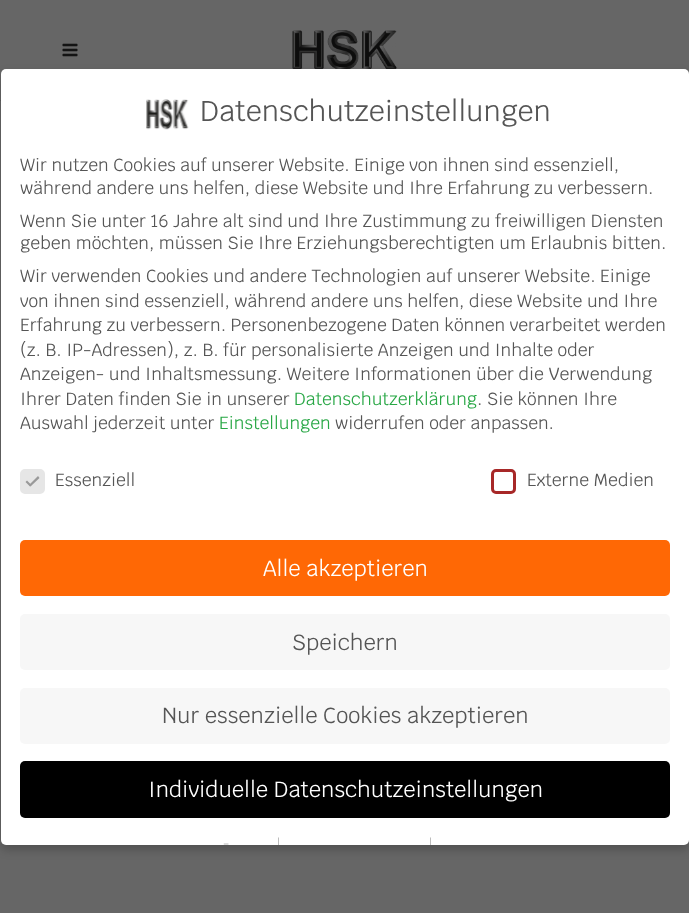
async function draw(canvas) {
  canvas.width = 689
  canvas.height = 913
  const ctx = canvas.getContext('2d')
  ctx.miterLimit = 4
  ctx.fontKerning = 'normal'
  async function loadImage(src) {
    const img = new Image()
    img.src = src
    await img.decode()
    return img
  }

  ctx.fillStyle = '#666'
  ctx.fillRect(0, 0, 689, 913)
  ctx.fillStyle = '#5c5c5c'
  ctx.fillRect(0, 100, 1, 1)
  ctx.drawImage(await loadImage('image0.png'), 62, 43, 16, 14)
  ctx.drawImage(await loadImage('image1.png'), 292, 30, 105, 39)
  ctx.fillStyle = '#00000033'
  ctx.filter = 'blur(5px)'
  ctx.beginPath()
  ctx.roundRect(1, 74, 688, 776, 5)
  ctx.fill()
  ctx.filter = 'none'
  ctx.fillStyle = '#fff'
  ctx.beginPath()
  ctx.roundRect(1, 69, 688, 776, 5)
  ctx.fill()
  ctx.drawImage(await loadImage('image2.png'), 146, 99, 43, 31)
  ctx.font = '28.5px Krub'
  ctx.fillStyle = '#555'
  ctx.fillText('Datenschutzeinstellungen', 200, 121)
  ctx.font = '17.5px Krub'
  ctx.fillText('Wir nutzen Cookies auf unserer Website. Einige von ihnen sind essenziell,', 20, 171)
  ctx.fillText('während andere uns helfen, diese Website und Ihre Erfahrung zu verbessern.', 20, 194)
  ctx.fillText('Wenn Sie unter 16 Jahre alt sind und Ihre Zustimmung zu freiwilligen Diensten', 20, 227)
  ctx.fillText('geben möchten, müssen Sie Ihre Erziehungsberechtigten um Erlaubnis bitten.', 20, 249)
  ctx.fillText('Wir verwenden Cookies und andere Technologien auf unserer Website. Einige', 20, 282)
  ctx.fillText('von ihnen sind essenziell, während andere uns helfen, diese Website und Ihre', 20, 307)
  ctx.fillText('Erfahrung zu verbessern. Personenbezogene Daten können verarbeitet werden', 20, 331)
  ctx.fillText('(z. B. IP-Adressen), z. B. für personalisierte Anzeigen und Inhalte oder', 20, 356)
  ctx.fillText('Anzeigen- und Inhaltsmessung. Weitere Informationen über die Verwendung', 20, 380)
  ctx.fillText('Ihrer Daten finden Sie in unserer', 20, 405)
  ctx.fillStyle = '#28a745'
  ctx.fillText('Datenschutzerklärung', 294, 405)
  ctx.fillStyle = '#555'
  ctx.fillText('. Sie können Ihre', 477, 405)
  ctx.fillText('Auswahl jederzeit unter', 20, 429)
  ctx.fillStyle = '#28a745'
  ctx.fillText('Einstellungen', 219, 429)
  ctx.fillStyle = '#555'
  ctx.fillText('widerrufen oder anpassen.', 335, 429)
  ctx.fillStyle = '#e6e6e6'
  ctx.beginPath()
  ctx.roundRect(21.5, 470.5, 22, 22, 3.5)
  ctx.fill()
  ctx.strokeStyle = '#e6e6e6'
  ctx.lineWidth = 3
  ctx.stroke()
  ctx.fillStyle = '#999'
  ctx.beginPath()
  ctx.moveTo(38, 476)
  ctx.lineTo(39.5, 478)
  ctx.lineTo(30.5, 486.5)
  ctx.lineTo(29, 485)
  ctx.closePath()
  ctx.fill()
  ctx.beginPath()
  ctx.moveTo(27, 480.5)
  ctx.lineTo(31.5, 485)
  ctx.lineTo(30, 486.5)
  ctx.lineTo(25.5, 482)
  ctx.closePath()
  ctx.fill()
  ctx.fillStyle = '#555'
  ctx.fillText('Essenziell', 55, 486)
  ctx.beginPath()
  ctx.roundRect(492.5, 470.5, 22, 22, 3.5)
  ctx.strokeStyle = '#a72828'
  ctx.stroke()
  ctx.fillText('Externe Medien', 527, 486)
  ctx.fillStyle = '#ff6805'
  ctx.beginPath()
  ctx.roundRect(20, 540, 650, 56, 5)
  ctx.fill()
  ctx.font = '21.9px Krub'
  ctx.fillStyle = '#fff'
  ctx.fillText('Alle akzeptieren', 263, 576)
  ctx.fillStyle = '#f7f7f7'
  ctx.beginPath()
  ctx.roundRect(20, 614, 650, 56, 5)
  ctx.fill()
  ctx.fillStyle = '#555'
  ctx.fillText('Speichern', 292, 650)
  ctx.fillStyle = '#f7f7f7'
  ctx.beginPath()
  ctx.roundRect(20, 688, 650, 56, 5)
  ctx.fill()
  ctx.fillStyle = '#555'
  ctx.fillText('Nur essenzielle Cookies akzeptieren', 162, 723)
  ctx.fillStyle = '#000'
  ctx.beginPath()
  ctx.roundRect(20, 761, 650, 57, 5)
  ctx.fill()
  ctx.fillStyle = '#fff'
  ctx.fillText('Individuelle Datenschutzeinstellungen', 148, 797)
  ctx.font = '13px Krub'
  ctx.fillStyle = '#aaa'
  ctx.fillText('-', 223, 848)
  ctx.save()
  ctx.beginPath()
  ctx.roundRect(1, 69, 688, 776, 5)
  ctx.clip()
  ctx.fillText('|', 277, 848)
  ctx.fillText('|', 429, 848)
  ctx.restore()
}

draw(document.querySelector('canvas'))
